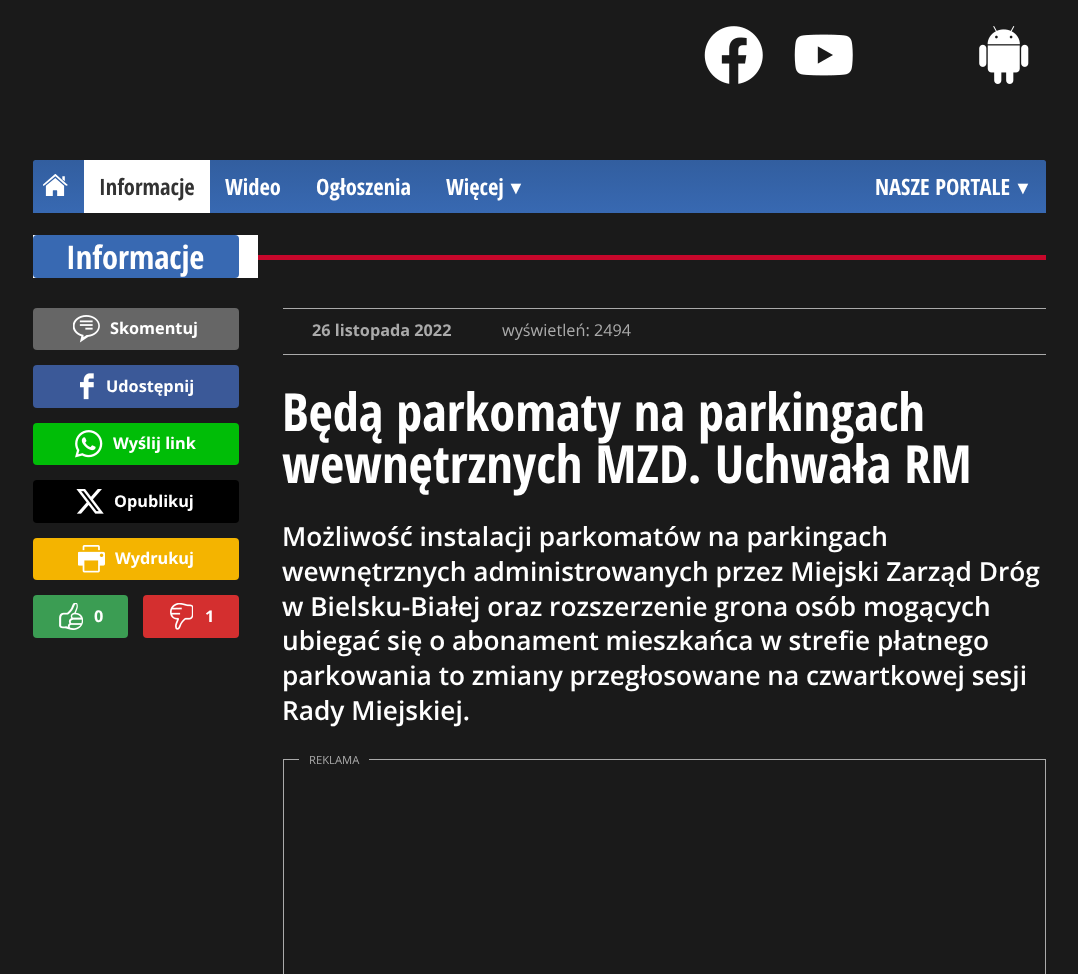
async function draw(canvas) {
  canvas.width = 1078
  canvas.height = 974
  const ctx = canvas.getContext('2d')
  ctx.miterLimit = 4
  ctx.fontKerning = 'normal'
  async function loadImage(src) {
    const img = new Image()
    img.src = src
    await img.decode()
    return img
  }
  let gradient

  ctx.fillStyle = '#1a1a1a'
  ctx.fillRect(0, 0, 1078, 974)
  ctx.drawImage(await loadImage('image0.png'), 704, 26, 59, 58)
  ctx.drawImage(await loadImage('image1.png'), 794, 34, 59, 42)
  ctx.drawImage(await loadImage('image2.png'), 979, 26, 50, 58)
  gradient = ctx.createLinearGradient(539, 160, 539, 213)
  gradient.addColorStop(0, '#325e9f')
  gradient.addColorStop(1, '#3869b2')
  ctx.fillStyle = gradient
  ctx.beginPath()
  ctx.roundRect(33, 160, 1013, 53, [2.5, 2.5, 0, 0])
  ctx.fill()
  ctx.drawImage(await loadImage('image3.png'), 43, 174, 25, 22)
  ctx.fillStyle = '#fff'
  ctx.fillRect(84, 160, 126, 53)
  ctx.font = 'bold 22.5px Open Sans Condensed'
  ctx.fillStyle = '#333'
  ctx.fillText('Informacje', 99, 195)
  ctx.fillStyle = '#fff'
  ctx.fillText('Wideo', 225, 195)
  ctx.fillText('Ogłoszenia', 316, 195)
  ctx.fillText('Więcej', 446, 195)
  ctx.font = 'bold 18px Liberation Sans'
  ctx.fillText('▼', 507, 194)
  ctx.font = 'bold 22.5px Open Sans Condensed'
  ctx.fillText('NASZE PORTALE', 875, 195)
  ctx.font = 'bold 18px Liberation Sans'
  ctx.fillText('▼', 1014, 194)
  ctx.fillRect(33, 235, 225, 43)
  ctx.fillStyle = '#3869b2'
  ctx.beginPath()
  ctx.roundRect(33, 235, 206, 43, 4)
  ctx.fill()
  ctx.font = 'bold 32.5px Open Sans Condensed'
  ctx.fillStyle = '#fff'
  ctx.fillText('Informacje', 66, 269)
  ctx.fillStyle = '#c7072b'
  ctx.fillRect(258, 255, 788, 5)
  ctx.fillStyle = '#666'
  ctx.beginPath()
  ctx.roundRect(33, 308, 206, 42, 4)
  ctx.fill()
  ctx.drawImage(await loadImage('image4.png'), 73, 315, 27, 28)
  ctx.font = 'bold 16.25px Open Sans'
  ctx.fillStyle = '#fff'
  ctx.fillText('Skomentuj', 110, 334)
  ctx.fillStyle = '#3b5998'
  ctx.beginPath()
  ctx.roundRect(33, 365, 206, 43, 4)
  ctx.fill()
  ctx.drawImage(await loadImage('image5.png'), 80, 373, 14, 27)
  ctx.fillStyle = '#fff'
  ctx.fillText('Udostępnij', 106, 392)
  ctx.fillStyle = '#00bd07'
  ctx.beginPath()
  ctx.roundRect(33, 423, 206, 42, 4)
  ctx.fill()
  ctx.drawImage(await loadImage('image6.png'), 75, 430, 28, 28)
  ctx.fillStyle = '#fff'
  ctx.fillText('Wyślij link', 113, 449)
  ctx.fillStyle = '#000'
  ctx.beginPath()
  ctx.roundRect(33, 480, 206, 43, 4)
  ctx.fill()
  ctx.drawImage(await loadImage('image7.png'), 76, 489, 28, 25)
  ctx.fillStyle = '#fff'
  ctx.fillText('Opublikuj', 114, 507)
  ctx.fillStyle = '#f4b400'
  ctx.beginPath()
  ctx.roundRect(33, 538, 206, 42, 4)
  ctx.fill()
  ctx.drawImage(await loadImage('image8.png'), 78, 545, 27, 28)
  ctx.fillStyle = '#fff'
  ctx.fillText('Wydrukuj', 115, 564)
  ctx.fillStyle = '#3b9d53'
  ctx.beginPath()
  ctx.roundRect(33, 595, 95, 43, 4)
  ctx.fill()
  ctx.drawImage(await loadImage('image9.png'), 59, 603, 24, 27)
  ctx.fillStyle = '#fff'
  ctx.fillText('0', 94, 622)
  ctx.fillStyle = '#d42f2f'
  ctx.beginPath()
  ctx.roundRect(143, 595, 96, 43, 4)
  ctx.fill()
  ctx.drawImage(await loadImage('image10.png'), 170, 603, 23, 27)
  ctx.fillStyle = '#fff'
  ctx.fillText('1', 205, 622)
  ctx.fillStyle = '#aaa'
  ctx.fillRect(283, 308, 763, 1)
  ctx.fillRect(283, 354, 763, 1)
  ctx.fillText('26 listopada 2022', 312, 336)
  ctx.font = '16.25px Open Sans'
  ctx.fillText('wyświetleń: 2494', 502, 336)
  ctx.font = 'bold 52.5px Open Sans Condensed'
  ctx.fillStyle = '#fff'
  ctx.fillText('Będą parkomaty na parkingach', 282, 431)
  ctx.fillText('wewnętrznych MZD. Uchwała RM', 282, 483)
  ctx.font = '600 26.25px Open Sans'
  ctx.fillText('Możliwość instalacji parkomatów na parkingach', 282, 546)
  ctx.fillText('wewnętrznych administrowanych przez Miejski Zarząd Dróg', 282, 581)
  ctx.fillText('w Bielsku-Białej oraz rozszerzenie grona osób mogących', 282, 616)
  ctx.fillText('ubiegać się o abonament mieszkańca w strefie płatnego', 282, 650)
  ctx.fillText('parkowania to zmiany przegłosowane na czwartkowej sesji', 282, 685)
  ctx.fillText('Rady Miejskiej.', 282, 720)
  ctx.strokeStyle = '#aaa'
  ctx.strokeRect(283.5, 759.5, 762, 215)
  ctx.fillStyle = '#1a1a1a'
  ctx.fillRect(299, 759, 70, 1)
  ctx.font = '11.25px Open Sans'
  ctx.fillStyle = '#aaa'
  ctx.fillText('REKLAMA', 309, 764)
}

draw(document.querySelector('canvas'))
